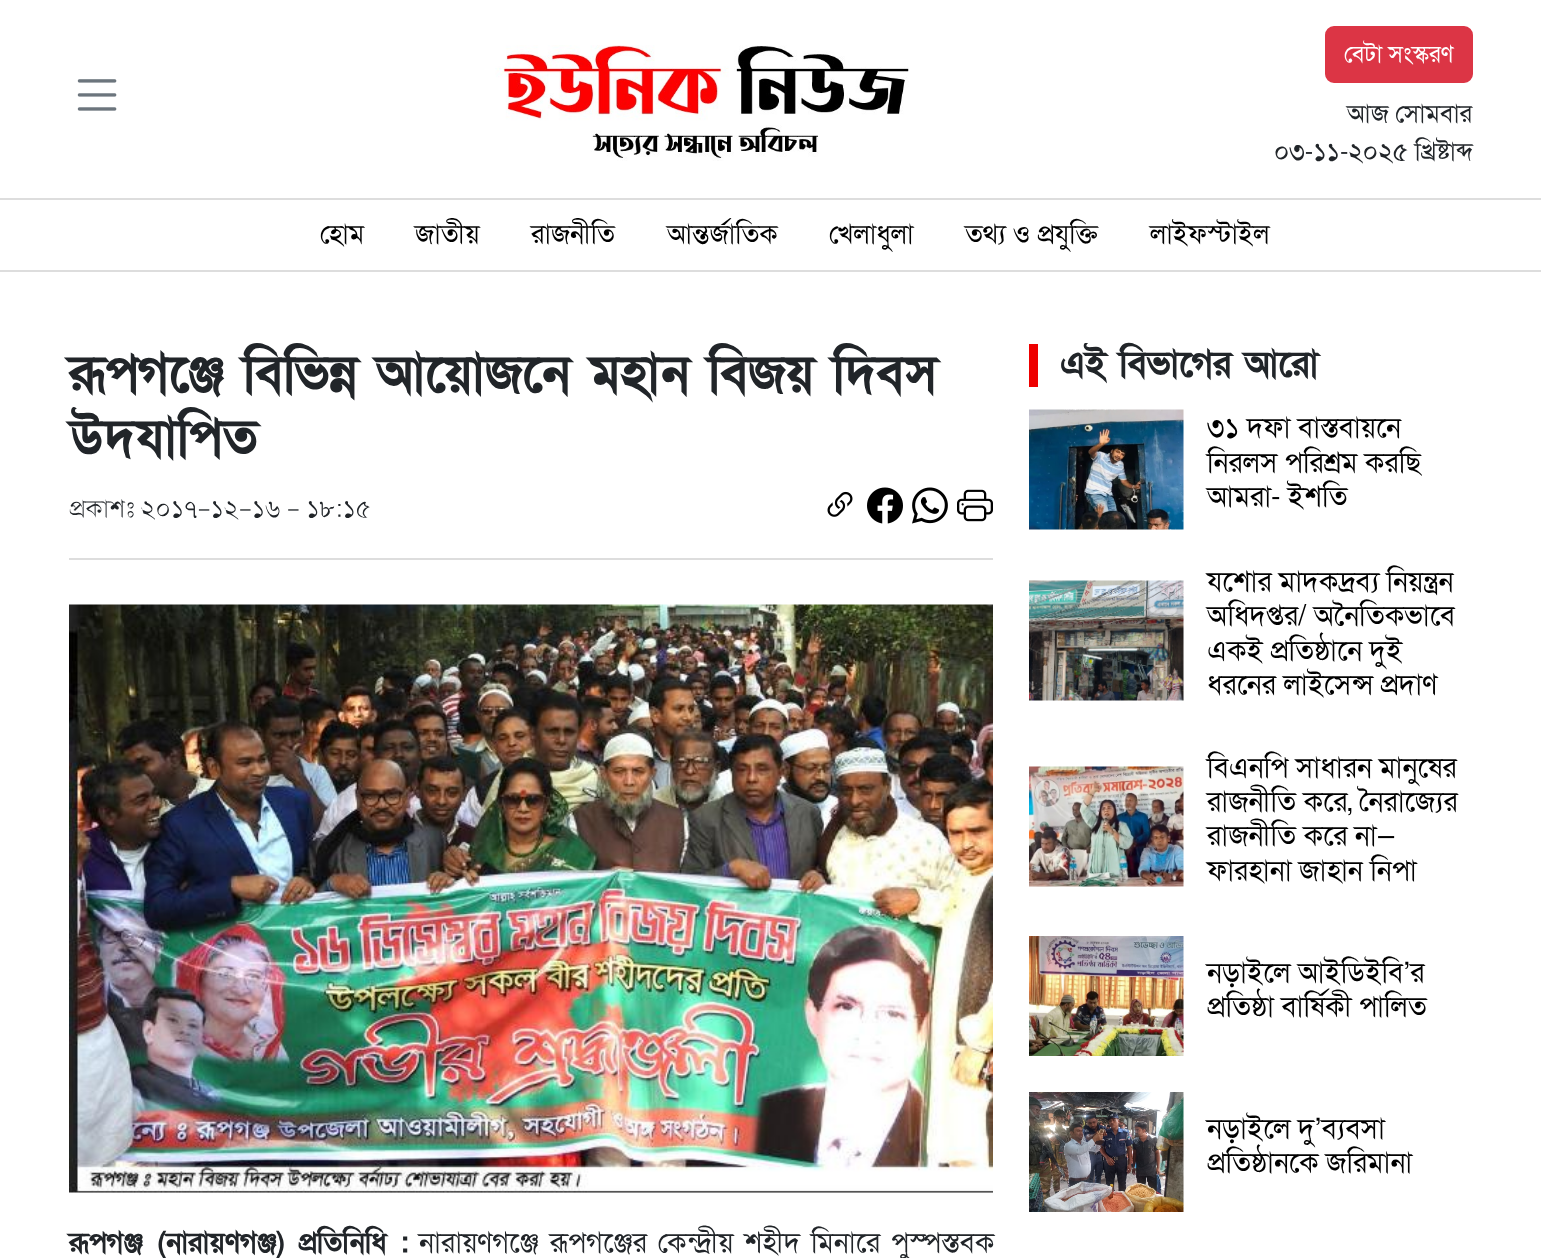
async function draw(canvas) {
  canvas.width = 1541
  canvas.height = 1258
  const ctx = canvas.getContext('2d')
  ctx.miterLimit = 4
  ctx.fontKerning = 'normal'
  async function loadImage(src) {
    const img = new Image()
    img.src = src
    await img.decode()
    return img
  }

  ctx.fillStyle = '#fff'
  ctx.fillRect(0, 0, 1541, 1258)
  ctx.drawImage(await loadImage('image0.png'), 77, 79, 40, 32)
  ctx.drawImage(await loadImage('image1.png'), 495, 45, 414, 116)
  ctx.fillStyle = '#dc3545'
  ctx.beginPath()
  ctx.roundRect(1326, 27, 146, 55, 8)
  ctx.fill()
  ctx.strokeStyle = '#dc3545'
  ctx.lineWidth = 2
  ctx.stroke()
  ctx.font = '24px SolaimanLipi'
  ctx.fillStyle = '#fff'
  ctx.fillText('বেটা সংস্করণ', 1344, 62)
  ctx.font = '25.5px SolaimanLipi'
  ctx.fillStyle = '#212529'
  ctx.fillText('আজ সোমবার', 1347, 122)
  ctx.fillText('০৩-১১-২০২৫ খ্রিষ্টাব্দ', 1274, 160)
  ctx.fillStyle = '#ddd'
  ctx.fillRect(0, 198, 1541, 2)
  ctx.fillRect(0, 270, 1541, 2)
  ctx.font = '27px SolaimanLipi'
  ctx.fillStyle = '#000'
  ctx.fillText('হোম', 320, 243)
  ctx.fillText('জাতীয়', 415, 243)
  ctx.fillText('রাজনীতি', 531, 243)
  ctx.fillText('আন্তর্জাতিক', 667, 243)
  ctx.fillText('খেলাধুলা', 829, 243)
  ctx.fillText('তথ্য ও প্রযুক্তি', 965, 243)
  ctx.fillText('লাইফস্টাইল', 1150, 243)
  ctx.fillStyle = '#ddd'
  ctx.fillRect(69, 558, 924, 2)
  ctx.font = 'bold 52.75px SolaimanLipi'
  ctx.fillStyle = '#212529'
  ctx.fillText('রূপগঞ্জে বিভিন্ন আয়োজনে মহান বিজয় দিবস', 69, 391)
  ctx.fillText('উদযাপিত', 69, 455)
  ctx.font = '100 25.5px SolaimanLipi'
  ctx.fillText('প্রকাশঃ ২০১৭-১২-১৬ - ১৮:১৫', 69, 517)
  ctx.drawImage(await loadImage('image2.png'), 827, 491, 26, 26)
  ctx.drawImage(await loadImage('image3.png'), 867, 487, 36, 37)
  ctx.drawImage(await loadImage('image4.png'), 912, 487, 36, 37)
  ctx.drawImage(await loadImage('image5.png'), 957, 489, 36, 33)
  ctx.drawImage(await loadImage('image6.png'), 69, 604, 924, 589)
  ctx.wordSpacing = '3.5px'
  ctx.font = 'bold 28.7px SolaimanLipi'
  ctx.fillText('রূপগঞ্জ (নারায়ণগঞ্জ) প্রতিনিধি :', 69, 1252)
  ctx.font = '28.7px SolaimanLipi'
  ctx.fillText('নারায়ণগঞ্জে রূপগঞ্জের কেন্দ্রীয় শহীদ মিনারে পুস্পস্তবক', 419, 1252)
  ctx.fillStyle = '#e00'
  ctx.fillRect(1029, 344, 9, 43)
  ctx.wordSpacing = '0px'
  ctx.font = 'bold 36.5px SolaimanLipi'
  ctx.fillStyle = '#212529'
  ctx.fillText('এই বিভাগের আরো', 1060, 376)
  ctx.drawImage(await loadImage('image7.png'), 1029, 409, 155, 121)
  ctx.font = '28.7px SolaimanLipi'
  ctx.fillStyle = '#000'
  ctx.fillText('৩১ দফা বাস্তবায়নে', 1207, 437)
  ctx.fillText('নিরলস পরিশ্রম করছি', 1207, 472)
  ctx.fillText('আমরা- ইশতি', 1207, 506)
  ctx.drawImage(await loadImage('image8.png'), 1029, 580, 155, 121)
  ctx.fillText('যশোর মাদকদ্রব্য নিয়ন্ত্রন', 1207, 591)
  ctx.fillText('অধিদপ্তর/ অনৈতিকভাবে', 1207, 625)
  ctx.fillText('একই প্রতিষ্ঠানে দুই', 1207, 660)
  ctx.fillText('ধরনের লাইসেন্স প্রদাণ', 1207, 694)
  ctx.drawImage(await loadImage('image9.png'), 1029, 766, 155, 121)
  ctx.fillText('বিএনপি সাধারন মানুষের', 1207, 777)
  ctx.fillText('রাজনীতি করে, নৈরাজ্যের', 1207, 811)
  ctx.fillText('রাজনীতি করে না—', 1207, 845)
  ctx.fillText('ফারহানা জাহান নিপা', 1207, 880)
  ctx.drawImage(await loadImage('image10.png'), 1029, 936, 155, 120)
  ctx.fillText('নড়াইলে আইডিইবি’র', 1207, 982)
  ctx.fillText('প্রতিষ্ঠা বার্ষিকী পালিত', 1207, 1016)
  ctx.drawImage(await loadImage('image11.png'), 1029, 1092, 155, 120)
  ctx.fillText('নড়াইলে দু’ব্যবসা', 1207, 1138)
  ctx.fillText('প্রতিষ্ঠানকে জরিমানা', 1207, 1172)
}

draw(document.querySelector('canvas'))
